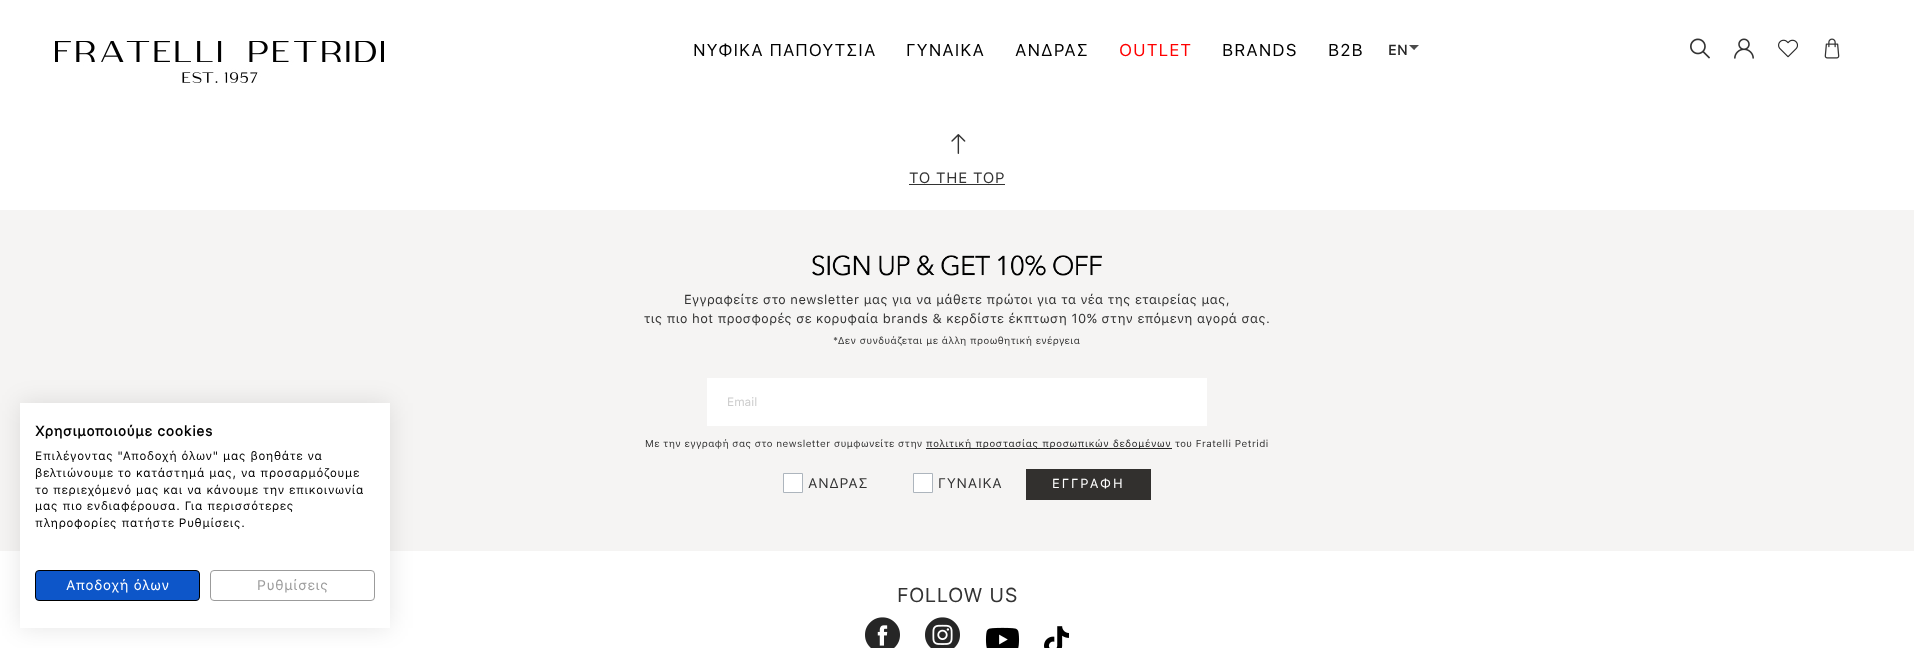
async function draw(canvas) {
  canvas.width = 1914
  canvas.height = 648
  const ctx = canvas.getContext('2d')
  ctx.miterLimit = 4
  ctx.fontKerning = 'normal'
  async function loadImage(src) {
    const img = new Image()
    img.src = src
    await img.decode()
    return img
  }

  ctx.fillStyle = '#fff'
  ctx.fillRect(0, 0, 1914, 648)
  ctx.drawImage(await loadImage('image0.png'), 55, 41, 329, 42)
  ctx.letterSpacing = '1px'
  ctx.font = '17px SF Pro Text'
  ctx.fillStyle = '#000'
  ctx.fillText('ΝΥΦΙΚΑ ΠΑΠΟΥΤΣΙΑ', 693, 56)
  ctx.fillText('ΓΥΝΑΙΚΑ', 906, 56)
  ctx.fillText('ΑΝΔΡΑΣ', 1015, 56)
  ctx.fillStyle = '#f00'
  ctx.fillText('OUTLET', 1119, 56)
  ctx.fillStyle = '#000'
  ctx.fillText('BRANDS', 1222, 56)
  ctx.fillText('B2B', 1328, 56)
  ctx.letterSpacing = '0.75px'
  ctx.font = 'bold 14px SF Pro Text'
  ctx.fillStyle = '#262626'
  ctx.fillText('EN', 1388, 55)
  ctx.drawImage(await loadImage('image1.png'), 1409, 45, 10, 5)
  ctx.drawImage(await loadImage('image2.png'), 1690, 38, 20, 21)
  ctx.drawImage(await loadImage('image3.png'), 1734, 38, 20, 21)
  ctx.drawImage(await loadImage('image4.png'), 1778, 39, 20, 19)
  ctx.drawImage(await loadImage('image5.png'), 1824, 38, 16, 21)
  ctx.fillStyle = '#f5f4f3'
  ctx.fillRect(0, 210, 1914, 341)
  ctx.fillStyle = '#0000001a'
  ctx.filter = 'blur(12px)'
  ctx.beginPath()
  ctx.rect(20, 403, 370, 225)
  ctx.fill()
  ctx.filter = 'none'
  ctx.fillStyle = '#fff'
  ctx.fillRect(20, 403, 370, 225)
  ctx.fillStyle = '#000'
  ctx.fillText('Χρησιμοποιούμε cookies', 35, 436)
  ctx.font = '12px SF Pro Text'
  ctx.fillText('Επιλέγοντας "Αποδοχή όλων" μας βοηθάτε να', 35, 460)
  ctx.fillText('βελτιώνουμε το κατάστημά μας, να προσαρμόζουμε', 35, 477)
  ctx.fillText('το περιεχόμενό μας και να κάνουμε την επικοινωνία', 35, 494)
  ctx.fillText('μας πιο ενδιαφέρουσα. Για περισσότερες', 35, 510)
  ctx.fillText('πληροφορίες πατήστε Ρυθμίσεις.', 35, 527)
  ctx.fillStyle = '#0d56c9'
  ctx.beginPath()
  ctx.roundRect(35.5, 570.5, 164, 30, 3.5)
  ctx.fill()
  ctx.strokeStyle = '#000'
  ctx.stroke()
  ctx.font = '14px SF Pro Text'
  ctx.fillStyle = '#fff'
  ctx.fillText('Αποδοχή όλων', 66, 590)
  ctx.beginPath()
  ctx.roundRect(210.5, 570.5, 164, 30, 3.5)
  ctx.strokeStyle = '#9b9b9b'
  ctx.stroke()
  ctx.fillStyle = '#9b9b9b'
  ctx.fillText('Ρυθμίσεις', 257, 590)
  ctx.drawImage(await loadImage('image6.png'), 951, 134, 15, 20)
  ctx.font = '15px SF Pro Text'
  ctx.fillStyle = '#333'
  ctx.fillText('TO THE TOP', 909, 183)
  ctx.fillRect(909, 184, 96, 1)
  ctx.drawImage(await loadImage('image7.png'), 812, 255, 290, 21)
  ctx.letterSpacing = '0.5px'
  ctx.font = '13px SF Pro Text'
  ctx.fillText('Εγγραφείτε στο newsletter μας για να μάθετε πρώτοι για τα νέα της εταιρείας μας,', 684, 304)
  ctx.fillText('τις πιο hot προσφορές σε κορυφαία brands & κερδίστε έκπτωση 10% στην επόμενη αγορά σας.', 644, 323)
  ctx.font = '10px SF Pro Text'
  ctx.fillText('*Δεν συνδυάζεται με άλλη προωθητική ενέργεια', 833, 344)
  ctx.fillStyle = '#fff'
  ctx.fillRect(707, 378, 500, 48)
  ctx.letterSpacing = '0px'
  ctx.font = '12px SF Pro Text'
  ctx.fillStyle = '#ccc'
  ctx.fillText('Email', 727, 406)
  ctx.letterSpacing = '0.5px'
  ctx.font = '10px SF Pro Text'
  ctx.fillStyle = '#333'
  ctx.fillText('Με την εγγραφή σας στο newsletter συμφωνείτε στην', 645, 447)
  ctx.fillStyle = '#262626'
  ctx.fillRect(926, 448, 246, 1)
  ctx.letterSpacing = '0.75px'
  ctx.fillText('πολιτική προστασίας προσωπικών δεδομένων', 926, 447)
  ctx.letterSpacing = '0.5px'
  ctx.fillStyle = '#333'
  ctx.fillText('του Fratelli Petridi', 1175, 447)
  ctx.fillStyle = '#fff'
  ctx.beginPath()
  ctx.rect(783.5, 473.5, 19, 19)
  ctx.fill()
  ctx.strokeStyle = '#adb5bd'
  ctx.stroke()
  ctx.letterSpacing = '0.75px'
  ctx.font = '14px SF Pro Text'
  ctx.fillStyle = '#333'
  ctx.fillText('ΑΝΔΡΑΣ', 808, 488)
  ctx.fillStyle = '#fff'
  ctx.beginPath()
  ctx.rect(913.5, 473.5, 19, 19)
  ctx.fill()
  ctx.stroke()
  ctx.fillStyle = '#333'
  ctx.fillText('ΓΥΝΑΙΚΑ', 938, 488)
  ctx.fillStyle = '#32302e'
  ctx.fillRect(1026, 469, 125, 31)
  ctx.letterSpacing = '2px'
  ctx.font = '13px SF Pro Text'
  ctx.fillStyle = '#fff'
  ctx.fillText('ΕΓΓΡΑΦΗ', 1052, 488)
  ctx.letterSpacing = '0.5px'
  ctx.font = '20px SF Pro Text'
  ctx.fillStyle = '#333'
  ctx.fillText('FOLLOW US', 897, 602)
  ctx.drawImage(await loadImage('image8.png'), 865, 617, 35, 31)
  ctx.drawImage(await loadImage('image9.png'), 925, 617, 35, 31)
  ctx.drawImage(await loadImage('image10.png'), 985, 627, 35, 21)
  ctx.drawImage(await loadImage('image11.png'), 1044, 626, 25, 22)
}

draw(document.querySelector('canvas'))
